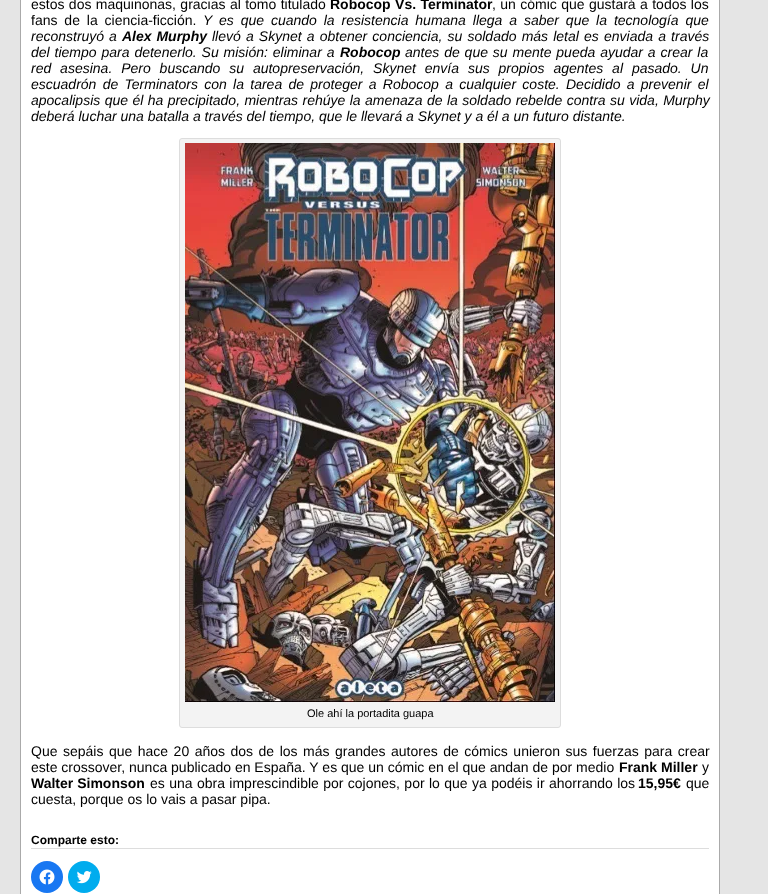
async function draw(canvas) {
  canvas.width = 768
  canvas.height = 894
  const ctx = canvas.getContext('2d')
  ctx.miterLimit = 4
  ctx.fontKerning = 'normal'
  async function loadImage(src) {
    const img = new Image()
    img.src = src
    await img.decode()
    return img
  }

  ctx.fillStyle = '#e5e5e5'
  ctx.fillRect(0, 0, 768, 894)
  ctx.fillStyle = '#fff'
  ctx.beginPath()
  ctx.rect(20.5, -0.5, 699, 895)
  ctx.fill()
  ctx.strokeStyle = '#aaa'
  ctx.stroke()
  ctx.wordSpacing = '0.5px'
  ctx.font = '14px Liberation Sans'
  ctx.fillStyle = '#000'
  ctx.fillText('estos dos maquinonas, gracias al tomo titulado', 31, 9)
  ctx.font = 'bold 14px Liberation Sans'
  ctx.fillText('Robocop Vs. Terminator', 330, 9)
  ctx.font = '14px Liberation Sans'
  ctx.fillText(', un cómic que gustará a todos los', 492, 9)
  ctx.wordSpacing = '3px'
  ctx.fillText('fans de la ciencia-ficción.', 31, 25)
  ctx.font = 'italic 14px Liberation Sans'
  ctx.fillText('Y es que cuando la resistencia humana llega a saber que la tecnología que', 203, 25)
  ctx.wordSpacing = '1px'
  ctx.fillText('reconstruyó a', 31, 41)
  ctx.font = 'italic bold 14px Liberation Sans'
  ctx.fillText('Alex Murphy', 122, 41)
  ctx.wordSpacing = '1.25px'
  ctx.font = 'italic 14px Liberation Sans'
  ctx.fillText('llevó a Skynet a obtener conciencia, su soldado más letal es enviada a través', 212, 41)
  ctx.wordSpacing = '1px'
  ctx.fillText('del tiempo para detenerlo. Su misión: eliminar a', 31, 57)
  ctx.wordSpacing = '0px'
  ctx.font = 'italic bold 14px Liberation Sans'
  ctx.fillText('Robocop', 340, 57)
  ctx.wordSpacing = '1px'
  ctx.font = 'italic 14px Liberation Sans'
  ctx.fillText('antes de que su mente pueda ayudar a crear la', 405, 57)
  ctx.wordSpacing = '5px'
  ctx.fillText('red asesina. Pero buscando su autopreservación, Skynet envía sus propios agentes al pasado. Un', 31, 73)
  ctx.wordSpacing = '2.4px'
  ctx.fillText('escuadrón de Terminators con la tarea de proteger a Robocop a cualquier coste. Decidido a prevenir el', 31, 89)
  ctx.wordSpacing = '0.5px'
  ctx.fillText('apocalipsis que él ha precipitado, mientras rehúye la amenaza de la soldado rebelde contra su vida, Murphy', 31, 105)
  ctx.wordSpacing = '0px'
  ctx.fillText('deberá luchar una batalla a través del tiempo, que le llevará a Skynet y a él a un futuro distante.', 31, 121)
  ctx.fillStyle = '#f3f3f3'
  ctx.beginPath()
  ctx.roundRect(179.5, 138.5, 381, 589, 2.5)
  ctx.fill()
  ctx.strokeStyle = '#ddd'
  ctx.stroke()
  ctx.drawImage(await loadImage('image0.png'), 185, 143, 370, 559)
  ctx.font = '11px Liberation Sans'
  ctx.fillStyle = '#000'
  ctx.fillText('Ole ahí la portadita guapa', 307, 717)
  ctx.wordSpacing = '1.6px'
  ctx.font = '14px Liberation Sans'
  ctx.fillText('Que sepáis que hace 20 años dos de los más grandes autores de cómics unieron sus fuerzas para crear', 31, 756)
  ctx.wordSpacing = '0px'
  ctx.fillText('este crossover, nunca publicado en España. Y es que un cómic en el que andan de por medio', 31, 772)
  ctx.font = 'bold 14px Liberation Sans'
  ctx.fillText('Frank Miller', 619, 772)
  ctx.font = '14px Liberation Sans'
  ctx.fillText('y', 702, 772)
  ctx.font = 'bold 14px Liberation Sans'
  ctx.fillText('Walter Simonson', 31, 788)
  ctx.wordSpacing = '0.5px'
  ctx.font = '14px Liberation Sans'
  ctx.fillText('es una obra imprescindible por cojones, por lo que ya podéis ir ahorrando los', 150, 788)
  ctx.wordSpacing = '0px'
  ctx.font = 'bold 14px Liberation Sans'
  ctx.fillText('15,95€', 638, 788)
  ctx.font = '14px Liberation Sans'
  ctx.fillText('que', 686, 788)
  ctx.fillText('cuesta, porque os lo vais a pasar pipa.', 31, 804)
  ctx.fillStyle = '#ddd'
  ctx.fillRect(31, 848, 678, 1)
  ctx.font = 'bold 12px Liberation Sans'
  ctx.fillStyle = '#000'
  ctx.fillText('Comparte esto:', 31, 844)
  ctx.fillStyle = '#1877f2'
  ctx.beginPath()
  ctx.arc(47, 877, 16, 0, 2 * Math.PI)
  ctx.fill()
  ctx.drawImage(await loadImage('image1.png'), 39, 869, 16, 16)
  ctx.fillStyle = '#00acee'
  ctx.beginPath()
  ctx.arc(84, 877, 16, 0, 2 * Math.PI)
  ctx.fill()
  ctx.drawImage(await loadImage('image2.png'), 76, 871, 16, 13)
}

draw(document.querySelector('canvas'))
